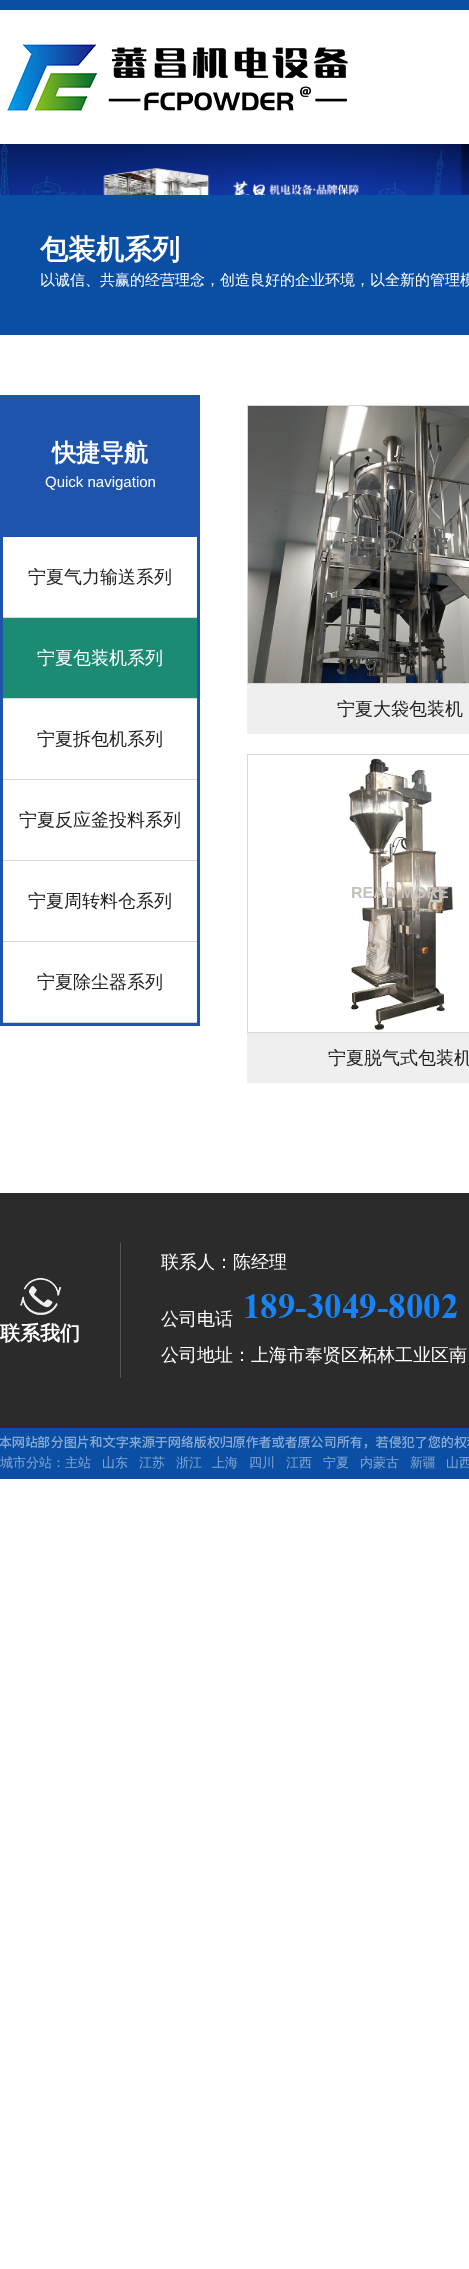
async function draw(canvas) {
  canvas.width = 469
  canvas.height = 2269
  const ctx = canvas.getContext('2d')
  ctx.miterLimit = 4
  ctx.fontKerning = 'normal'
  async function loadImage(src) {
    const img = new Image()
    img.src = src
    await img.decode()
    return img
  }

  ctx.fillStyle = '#fff'
  ctx.fillRect(0, 0, 469, 2269)
  ctx.fillStyle = '#0a4fa4'
  ctx.fillRect(0, 0, 469, 10)
  ctx.drawImage(await loadImage('image0.png'), 7, 40, 341, 71)
  ctx.drawImage(await loadImage('image1.png'), 0, 144, 469, 51)
  ctx.fillRect(0, 195, 469, 140)
  ctx.font = 'bold 28px WenQuanYi Zen Hei'
  ctx.fillStyle = '#fff'
  ctx.fillText('包装机系列', 40, 259)
  ctx.font = '500 15px WenQuanYi Zen Hei'
  ctx.fillText('以诚信、共赢的经营理念，创造良好的企业环境，以全新的管理模', 40, 285)
  ctx.fillStyle = '#1e54ac'
  ctx.fillRect(0, 395, 200, 631)
  ctx.font = 'bold 24px WenQuanYi Zen Hei'
  ctx.fillStyle = '#fff'
  ctx.fillText('快捷导航', 52, 461)
  ctx.font = '15px Liberation Sans'
  ctx.fillText('Quick navigation', 45, 487)
  ctx.fillRect(3, 537, 194, 80)
  ctx.fillStyle = '#d7d7d7'
  ctx.fillRect(3, 617, 194, 1)
  ctx.font = '500 18px WenQuanYi Zen Hei'
  ctx.fillStyle = '#202020'
  ctx.fillText('宁夏气力输送系列', 28, 583)
  ctx.fillStyle = '#1b8b74'
  ctx.fillRect(3, 618, 194, 80)
  ctx.fillStyle = '#d7d7d7'
  ctx.fillRect(3, 698, 194, 1)
  ctx.fillStyle = '#fff'
  ctx.fillText('宁夏包装机系列', 37, 664)
  ctx.fillRect(3, 699, 194, 80)
  ctx.fillStyle = '#d7d7d7'
  ctx.fillRect(3, 779, 194, 1)
  ctx.fillStyle = '#202020'
  ctx.fillText('宁夏拆包机系列', 37, 745)
  ctx.fillStyle = '#fff'
  ctx.fillRect(3, 780, 194, 80)
  ctx.fillStyle = '#d7d7d7'
  ctx.fillRect(3, 860, 194, 1)
  ctx.fillStyle = '#202020'
  ctx.fillText('宁夏反应釜投料系列', 19, 826)
  ctx.fillStyle = '#fff'
  ctx.fillRect(3, 861, 194, 80)
  ctx.fillStyle = '#d7d7d7'
  ctx.fillRect(3, 941, 194, 1)
  ctx.fillStyle = '#202020'
  ctx.fillText('宁夏周转料仓系列', 28, 907)
  ctx.fillStyle = '#fff'
  ctx.fillRect(3, 942, 194, 80)
  ctx.fillStyle = '#d7d7d7'
  ctx.fillRect(3, 1022, 194, 1)
  ctx.fillStyle = '#202020'
  ctx.fillText('宁夏除尘器系列', 37, 988)
  ctx.strokeStyle = '#d7d7d7'
  ctx.strokeRect(247.5, 405.5, 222, 278)
  ctx.drawImage(await loadImage('image2.png'), 248, 406, 221, 277)
  ctx.font = 'bold 16px Liberation Sans'
  ctx.fillStyle = '#676663'
  ctx.fillText('READ MORE', 351, 549)
  ctx.fillStyle = '#efefef'
  ctx.fillRect(247, 684, 222, 50)
  ctx.font = '500 18px WenQuanYi Zen Hei'
  ctx.fillStyle = '#202020'
  ctx.fillText('宁夏大袋包装机', 337, 715)
  ctx.strokeRect(247.5, 754.5, 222, 278)
  ctx.drawImage(await loadImage('image3.png'), 248, 755, 221, 277)
  ctx.font = 'bold 16px Liberation Sans'
  ctx.fillStyle = '#c6c1ba'
  ctx.fillText('READ MORE', 351, 898)
  ctx.fillStyle = '#efefef'
  ctx.fillRect(247, 1033, 222, 50)
  ctx.font = '500 18px WenQuanYi Zen Hei'
  ctx.fillStyle = '#202020'
  ctx.fillText('宁夏脱气式包装机', 328, 1064)
  ctx.fillStyle = '#2b2b2b'
  ctx.fillRect(0, 1193, 469, 235)
  ctx.fillStyle = '#555'
  ctx.fillRect(120, 1243, 1, 135)
  ctx.drawImage(await loadImage('image4.png'), 20, 1278, 41, 37)
  ctx.font = 'bold 20px WenQuanYi Zen Hei'
  ctx.fillStyle = '#fff'
  ctx.fillText('联系我们', 0, 1340)
  ctx.font = '500 18px WenQuanYi Zen Hei'
  ctx.fillText('联系人：陈经理', 161, 1268)
  ctx.fillText('公司电话', 161, 1325)
  ctx.drawImage(await loadImage('image5.png'), 245, 1294, 212, 24)
  ctx.fillText('公司地址：上海市奉贤区柘林工业区南', 161, 1361)
  ctx.fillStyle = '#0a4fa4'
  ctx.fillRect(0, 1428, 469, 51)
  ctx.drawImage(await loadImage('image6.png'), 0, 1435, 469, 14)
  ctx.font = '500 13px WenQuanYi Zen Hei'
  ctx.fillStyle = '#85a7d2'
  ctx.fillText('城市分站：主站', 0, 1467)
  ctx.fillText('山东', 102, 1467)
  ctx.fillText('江苏', 139, 1467)
  ctx.fillText('浙江', 176, 1467)
  ctx.fillText('上海', 212, 1467)
  ctx.fillText('四川', 249, 1467)
  ctx.fillText('江西', 286, 1467)
  ctx.fillText('宁夏', 323, 1467)
  ctx.fillText('内蒙古', 360, 1467)
  ctx.fillText('新疆', 410, 1467)
  ctx.fillText('山西', 446, 1467)
}

draw(document.querySelector('canvas'))
